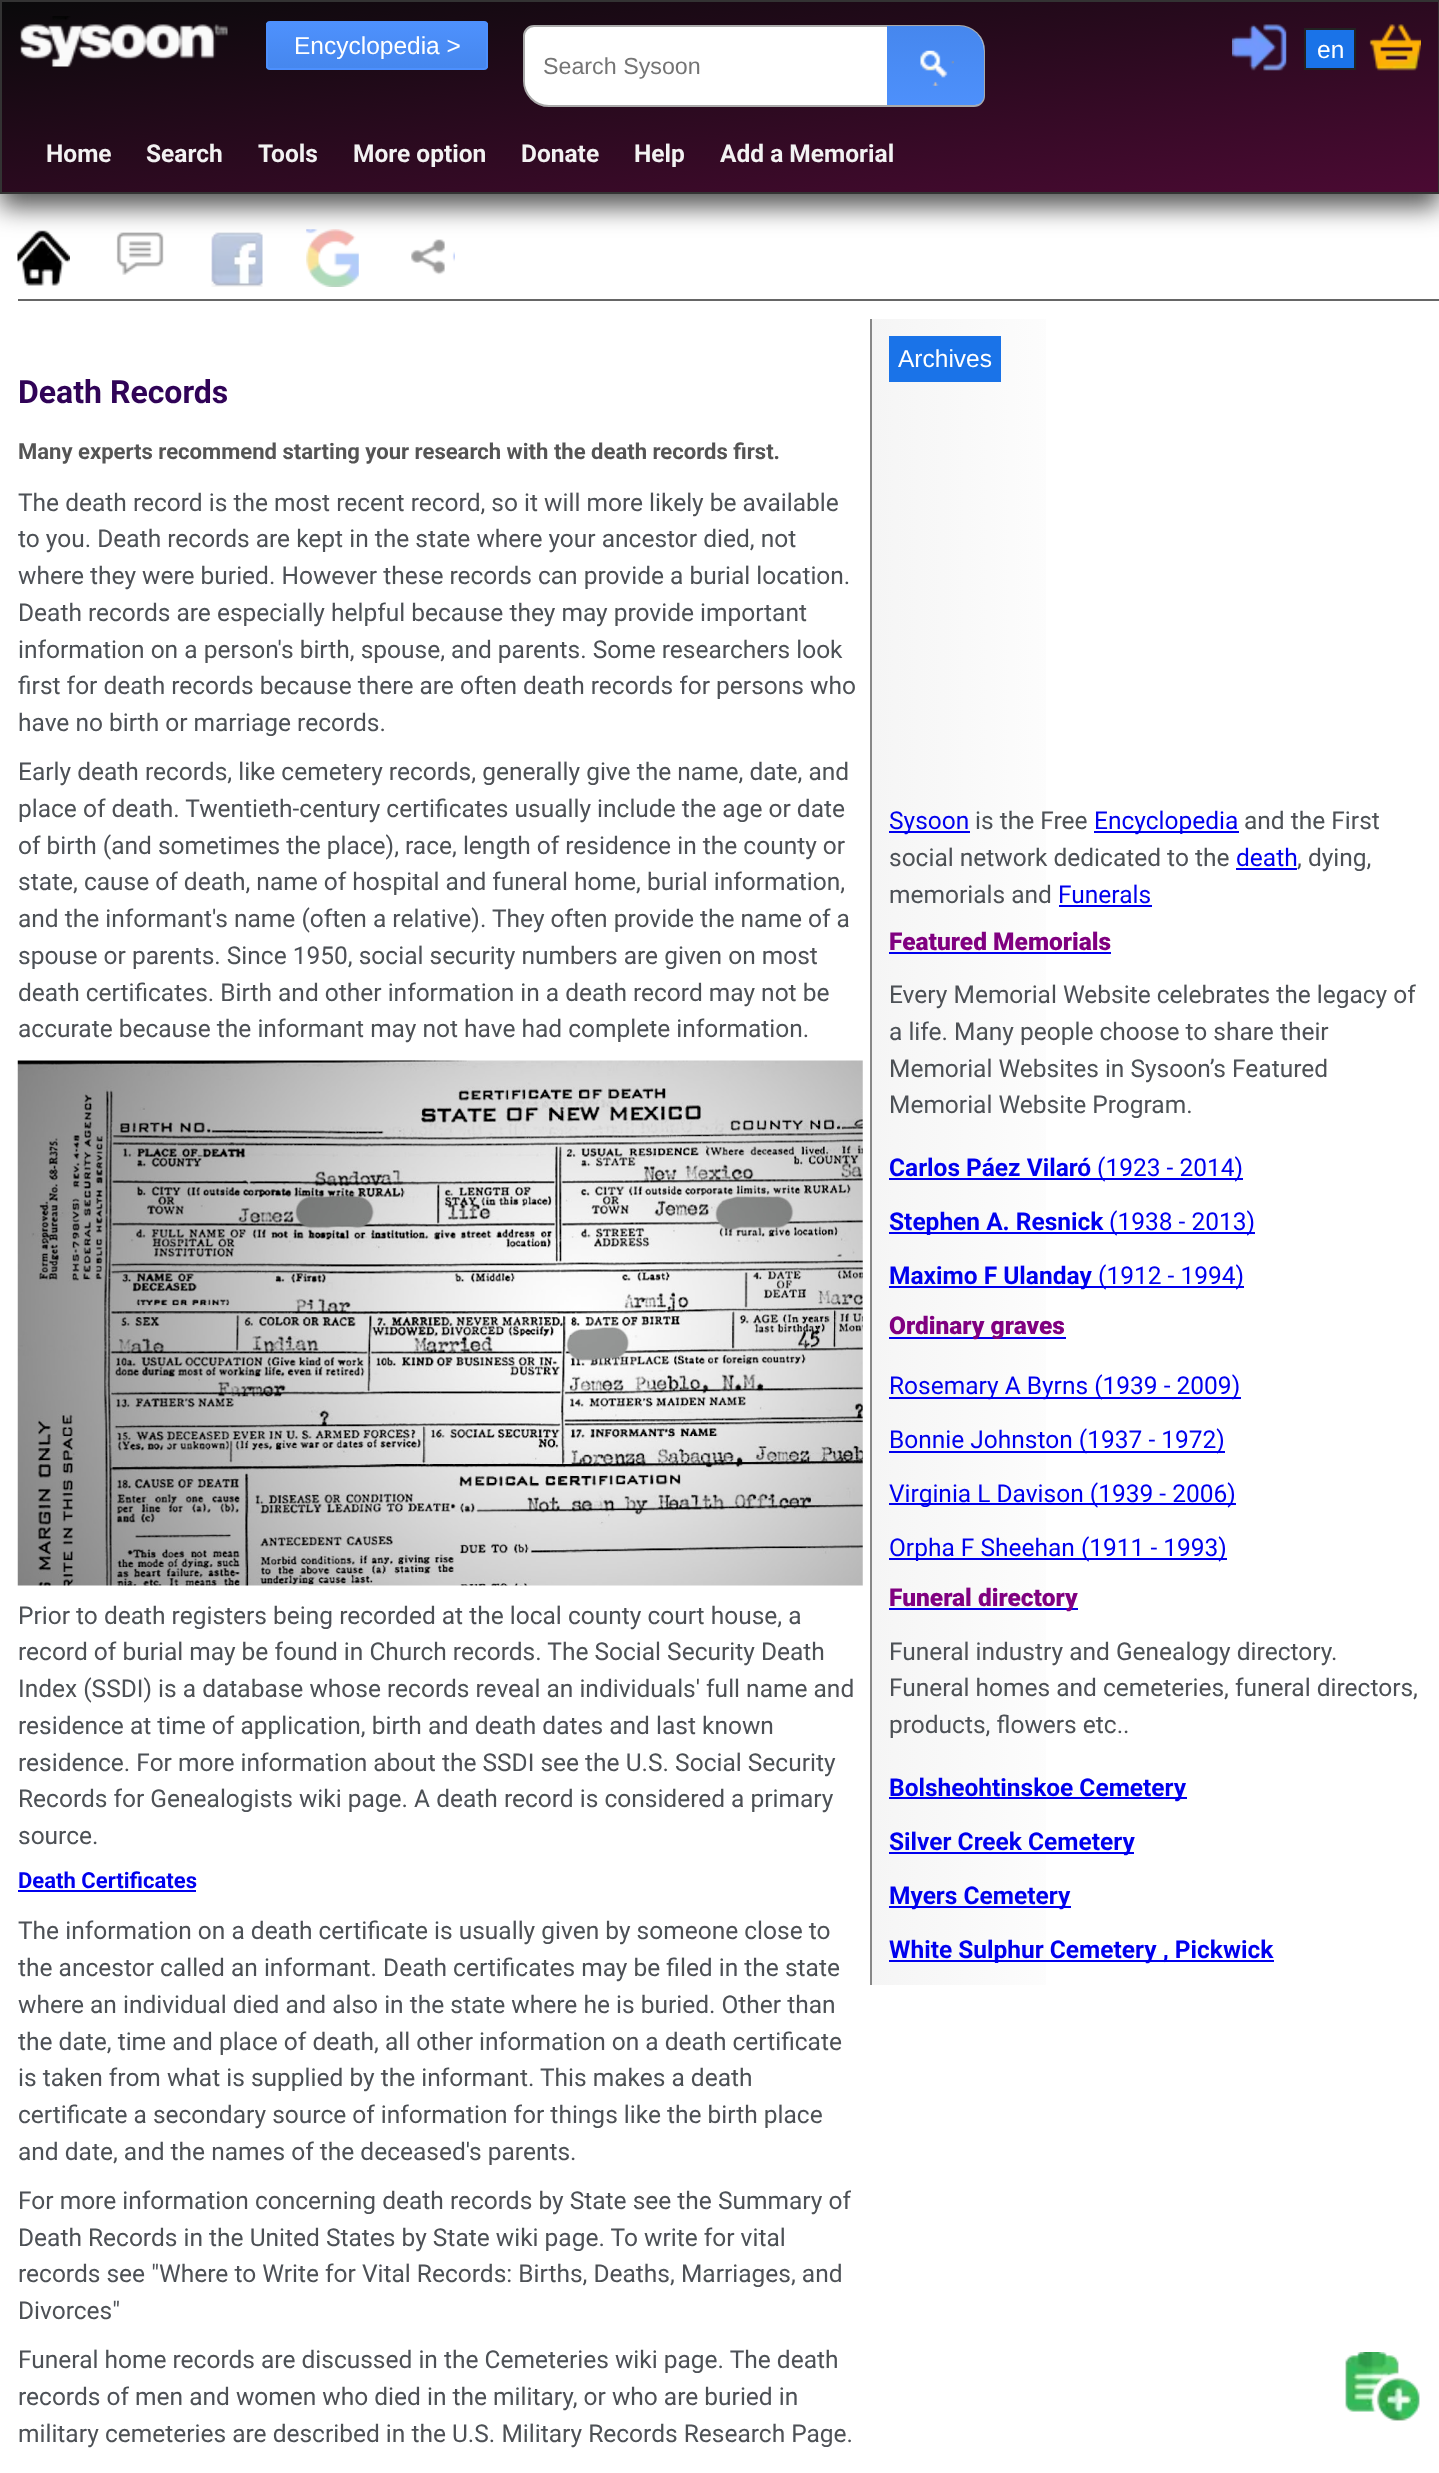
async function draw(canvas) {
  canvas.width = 1439
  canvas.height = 2473
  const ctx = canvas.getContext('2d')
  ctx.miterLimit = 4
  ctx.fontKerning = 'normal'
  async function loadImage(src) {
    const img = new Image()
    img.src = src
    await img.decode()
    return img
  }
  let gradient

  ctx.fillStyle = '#fff'
  ctx.fillRect(0, 0, 1439, 2473)
  ctx.drawImage(await loadImage('image4.png'), 17, 230, 53, 56)
  ctx.drawImage(await loadImage('image5.png'), 116, 232, 48, 43)
  ctx.drawImage(await loadImage('image6.png'), 211, 232, 52, 55)
  ctx.drawImage(await loadImage('image7.png'), 306, 229, 53, 58)
  ctx.drawImage(await loadImage('image8.png'), 411, 239, 44, 36)
  ctx.fillStyle = '#555'
  ctx.filter = 'blur(13px)'
  ctx.beginPath()
  ctx.rect(0, 12, 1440, 195)
  ctx.fill()
  ctx.filter = 'none'
  gradient = ctx.createLinearGradient(695, -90, 745, 285)
  gradient.addColorStop(0, '#0a0a0b')
  gradient.addColorStop(1, '#4b0a33')
  ctx.fillStyle = gradient
  ctx.fillRect(2, 2, 1436, 190)
  ctx.strokeStyle = '#333'
  ctx.lineWidth = 2
  ctx.strokeRect(1, 1, 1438, 192)
  ctx.drawImage(await loadImage('image0.png'), 20, 16, 208, 51)
  ctx.save()
  ctx.beginPath()
  ctx.roundRect(266, 21, 222, 49, 4)
  ctx.clip()
  gradient = ctx.createLinearGradient(377, 23, 377, 68)
  gradient.addColorStop(0, '#4e91fd')
  gradient.addColorStop(1, '#4687ee')
  ctx.fillStyle = gradient
  ctx.fillRect(266, 23, 222, 45)
  ctx.restore()
  ctx.beginPath()
  ctx.roundRect(267, 22, 220, 47, 3)
  ctx.strokeStyle = '#4d90fe'
  ctx.stroke()
  ctx.font = '24.5px Liberation Sans'
  ctx.fillStyle = '#fff'
  ctx.fillText('Encyclopedia >', 294, 54)
  ctx.drawImage(await loadImage('image1.png'), 1232, 24, 55, 47)
  ctx.fillStyle = '#1a73e8'
  ctx.beginPath()
  ctx.rect(1305, 29, 50, 40)
  ctx.fill()
  ctx.strokeStyle = '#222'
  ctx.stroke()
  ctx.fillStyle = '#fff'
  ctx.fillText('en', 1317, 58)
  ctx.drawImage(await loadImage('image2.png'), 1369, 24, 52, 47)
  ctx.beginPath()
  ctx.roundRect(524, 26, 460, 80, [10, 25, 10, 25])
  ctx.fill()
  ctx.strokeStyle = '#aaa'
  ctx.stroke()
  ctx.save()
  ctx.beginPath()
  ctx.roundRect(525, 26, 459, 79, [9, 25, 9, 25])
  ctx.clip()
  ctx.fillRect(525, 35, 459, 61)
  ctx.restore()
  ctx.font = '23.25px Liberation Sans'
  ctx.fillStyle = '#757575'
  ctx.fillText('Search Sysoon', 543, 74)
  gradient = ctx.createLinearGradient(935, 114, 935, 26)
  gradient.addColorStop(0, '#4e91fd')
  gradient.addColorStop(1, '#4687ee')
  ctx.fillStyle = gradient
  ctx.beginPath()
  ctx.roundRect(887, 26, 97, 79, [0, 25, 9, 0])
  ctx.fill()
  ctx.drawImage(await loadImage('image3.png'), 920, 50, 34, 36)
  ctx.font = 'bold 24.5px Roboto'
  ctx.fillStyle = '#f2f2f2'
  ctx.fillText('Home', 46, 162)
  ctx.fillText('Search', 146, 162)
  ctx.fillText('Tools', 258, 162)
  ctx.fillText('More option', 353, 162)
  ctx.fillText('Donate', 521, 162)
  ctx.fillText('Help', 634, 162)
  ctx.fillText('Add a Memorial', 720, 162)
  ctx.fillStyle = '#666'
  ctx.fillRect(18, 299, 1421, 2)
  ctx.font = 'bold 32px Roboto'
  ctx.fillStyle = '#300357'
  ctx.fillText('Death Records', 18, 403)
  ctx.font = 'bold 22.05px Roboto'
  ctx.fillStyle = '#555'
  ctx.fillText('Many experts recommend starting your research with the death records first.', 18, 459)
  ctx.font = '24.5px Roboto'
  ctx.fillStyle = '#4d5156'
  ctx.fillText('The death record is the most recent record, so it will more likely be available', 18, 511)
  ctx.fillText('to you. Death records are kept in the state where your ancestor died, not', 18, 547)
  ctx.fillText('where they were buried. However these records can provide a burial location.', 18, 584)
  ctx.fillText('Death records are especially helpful because they may provide important', 18, 621)
  ctx.fillText('information on a person\'s birth, spouse, and parents. Some researchers look', 18, 658)
  ctx.fillText('first for death records because there are often death records for persons who', 18, 694)
  ctx.fillText('have no birth or marriage records.', 18, 731)
  ctx.fillText('Early death records, like cemetery records, generally give the name, date, and', 18, 780)
  ctx.fillText('place of death. Twentieth-century certificates usually include the age or date', 18, 817)
  ctx.fillText('of birth (and sometimes the place), race, length of residence in the county or', 18, 854)
  ctx.fillText('state, cause of death, name of hospital and funeral home, burial information,', 18, 890)
  ctx.fillText('and the informant\'s name (often a relative). They often provide the name of a', 18, 927)
  ctx.fillText('spouse or parents. Since 1950, social security numbers are given on most', 18, 964)
  ctx.fillText('death certificates. Birth and other information in a death record may not be', 18, 1001)
  ctx.fillText('accurate because the informant may not have had complete information.', 18, 1037)
  ctx.drawImage(await loadImage('image9.png'), 17, 1060, 846, 526)
  ctx.fillText('Prior to death registers being recorded at the local county court house, a', 18, 1624)
  ctx.fillText('record of burial may be found in Church records. The Social Security Death', 18, 1660)
  ctx.fillText('Index (SSDI) is a database whose records reveal an individuals\' full name and', 18, 1697)
  ctx.fillText('residence at time of application, birth and death dates and last known', 18, 1734)
  ctx.fillText('residence. For more information about the SSDI see the U.S. Social Security', 18, 1771)
  ctx.fillText('Records for Genealogists wiki page. A death record is considered a primary', 18, 1807)
  ctx.fillText('source.', 18, 1844)
  ctx.font = 'bold 22.05px Roboto'
  ctx.fillStyle = '#00e'
  ctx.fillText('Death Certificates', 18, 1888)
  ctx.fillRect(18, 1890, 178, 2)
  ctx.font = '24.5px Roboto'
  ctx.fillStyle = '#4d5156'
  ctx.fillText('The information on a death certificate is usually given by someone close to', 18, 1939)
  ctx.fillText('the ancestor called an informant. Death certificates may be filed in the state', 18, 1976)
  ctx.fillText('where an individual died and also in the state where he is buried. Other than', 18, 2013)
  ctx.fillText('the date, time and place of death, all other information on a death certificate', 18, 2050)
  ctx.fillText('is taken from what is supplied by the informant. This makes a death', 18, 2086)
  ctx.fillText('certificate a secondary source of information for things like the birth place', 18, 2123)
  ctx.fillText('and date, and the names of the deceased\'s parents.', 18, 2160)
  ctx.fillText('For more information concerning death records by State see the Summary of', 18, 2209)
  ctx.fillText('Death Records in the United States by State wiki page. To write for vital', 18, 2246)
  ctx.fillText('records see "Where to Write for Vital Records: Births, Deaths, Marriages, and', 18, 2282)
  ctx.fillText('Divorces"', 18, 2319)
  ctx.fillText('Funeral home records are discussed in the Cemeteries wiki page. The death', 18, 2368)
  ctx.fillText('records of men and women who died in the military, or who are buried in', 18, 2405)
  ctx.fillText('military cemeteries are described in the U.S. Military Records Research Page.', 18, 2442)
  gradient = ctx.createLinearGradient(872, 1152, 1439, 1152)
  gradient.addColorStop(0, '#f5f5f5')
  gradient.addColorStop(0.41, '#fff')
  ctx.fillStyle = gradient
  ctx.fillRect(872, 319, 174, 1666)
  ctx.fillStyle = '#888'
  ctx.fillRect(870, 319, 2, 1666)
  ctx.fillStyle = '#1a73e8'
  ctx.fillRect(889, 336, 112, 46)
  ctx.font = '24.5px Liberation Sans'
  ctx.fillStyle = '#fff'
  ctx.fillText('Archives', 898, 367)
  ctx.fillStyle = '#00e'
  ctx.fillRect(889, 831, 81, 2)
  ctx.font = '24.5px Roboto'
  ctx.fillText('Sysoon', 889, 829)
  ctx.fillStyle = '#4d5156'
  ctx.fillText('is the Free', 975, 829)
  ctx.fillStyle = '#00e'
  ctx.fillRect(1094, 831, 145, 2)
  ctx.fillText('Encyclopedia', 1094, 829)
  ctx.fillStyle = '#4d5156'
  ctx.fillText('and the First', 1244, 829)
  ctx.fillText('social network dedicated to the', 889, 866)
  ctx.fillStyle = '#00e'
  ctx.fillText('death', 1236, 866)
  ctx.fillRect(1236, 868, 61, 2)
  ctx.fillStyle = '#4d5156'
  ctx.fillText(', dying,', 1297, 866)
  ctx.fillText('memorials and', 889, 903)
  ctx.fillStyle = '#00e'
  ctx.fillText('Funerals', 1058, 903)
  ctx.fillRect(1059, 905, 93, 2)
  ctx.font = '900 24.5px Roboto'
  ctx.fillStyle = '#800080'
  ctx.fillText('Featured Memorials', 889, 950)
  ctx.fillStyle = '#00e'
  ctx.fillRect(889, 952, 222, 2)
  ctx.font = '24.5px Roboto'
  ctx.fillStyle = '#4d5156'
  ctx.fillText('Every Memorial Website celebrates the legacy of', 889, 1003)
  ctx.fillText('a life. Many people choose to share their', 889, 1040)
  ctx.fillText('Memorial Websites in Sysoon’s Featured', 889, 1077)
  ctx.fillText('Memorial Website Program.', 889, 1113)
  ctx.font = 'bold 24.5px Roboto'
  ctx.fillStyle = '#00e'
  ctx.fillText('Carlos Páez Vilaró', 889, 1176)
  ctx.fillRect(889, 1178, 354, 2)
  ctx.font = '24.5px Roboto'
  ctx.fillText('(1923 - 2014)', 1097, 1176)
  ctx.fillRect(889, 1232, 366, 2)
  ctx.font = 'bold 24.5px Roboto'
  ctx.fillText('Stephen A. Resnick', 889, 1230)
  ctx.font = '24.5px Roboto'
  ctx.fillText('(1938 - 2013)', 1109, 1230)
  ctx.fillRect(889, 1286, 355, 2)
  ctx.font = 'bold 24.5px Roboto'
  ctx.fillText('Maximo F Ulanday', 889, 1284)
  ctx.font = '24.5px Roboto'
  ctx.fillText('(1912 - 1994)', 1098, 1284)
  ctx.fillRect(889, 1337, 177, 2)
  ctx.font = '900 24.5px Roboto'
  ctx.fillStyle = '#800080'
  ctx.fillText('Ordinary graves', 889, 1334)
  ctx.fillStyle = '#00e'
  ctx.fillRect(889, 1397, 352, 2)
  ctx.font = '24.5px Roboto'
  ctx.fillText('Rosemary A Byrns (1939 - 2009)', 889, 1394)
  ctx.fillRect(889, 1451, 336, 2)
  ctx.fillText('Bonnie Johnston (1937 - 1972)', 889, 1448)
  ctx.fillRect(889, 1503, 347, 2)
  ctx.fillText('Virginia L Davison (1939 - 2006)', 889, 1502)
  ctx.fillRect(889, 1558, 338, 2)
  ctx.fillText('Orpha F Sheehan (1911 - 1993)', 889, 1556)
  ctx.fillRect(889, 1608, 189, 2)
  ctx.font = '900 24.5px Roboto'
  ctx.fillStyle = '#800080'
  ctx.fillText('Funeral directory', 889, 1606)
  ctx.font = '24.5px Roboto'
  ctx.fillStyle = '#4d5156'
  ctx.fillText('Funeral industry and Genealogy directory.', 889, 1660)
  ctx.fillText('Funeral homes and cemeteries, funeral directors,', 889, 1696)
  ctx.fillText('products, flowers etc..', 889, 1733)
  ctx.fillStyle = '#00e'
  ctx.fillRect(889, 1797, 298, 2)
  ctx.font = 'bold 24.5px Roboto'
  ctx.fillText('Bolsheohtinskoe Cemetery', 889, 1796)
  ctx.fillRect(889, 1852, 245, 2)
  ctx.fillText('Silver Creek Cemetery', 889, 1850)
  ctx.fillRect(889, 1906, 182, 2)
  ctx.fillText('Myers Cemetery', 889, 1904)
  ctx.fillRect(889, 1960, 385, 2)
  ctx.fillText('White Sulphur Cemetery , Pickwick', 889, 1958)
  ctx.drawImage(await loadImage('image10.png'), 1345, 2352, 75, 69)
}

draw(document.querySelector('canvas'))
